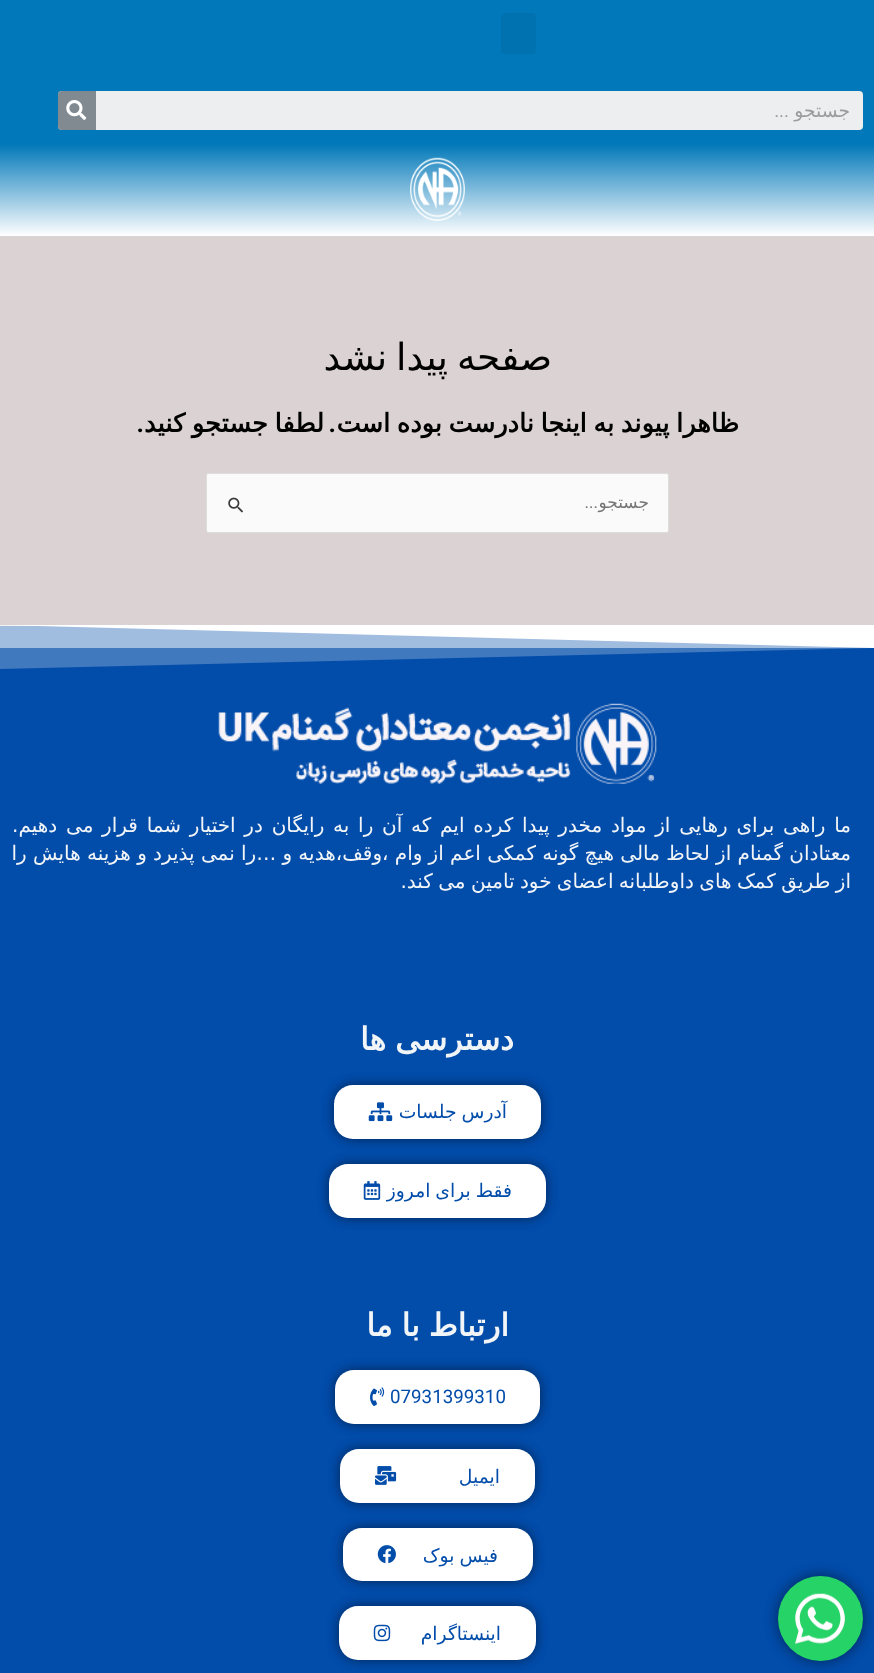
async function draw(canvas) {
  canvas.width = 874
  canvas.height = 1673
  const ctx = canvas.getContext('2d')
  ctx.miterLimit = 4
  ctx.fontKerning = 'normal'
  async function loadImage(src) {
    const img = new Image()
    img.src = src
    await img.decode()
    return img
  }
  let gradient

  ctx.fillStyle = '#dbd3d3'
  ctx.fillRect(0, 0, 874, 1673)
  ctx.fillStyle = '#ede9e9'
  ctx.fillRect(0, 625, 37, 1)
  gradient = ctx.createLinearGradient(438, 0, 438, 236)
  gradient.addColorStop(0.61, '#0178b9')
  gradient.addColorStop(1, '#fff')
  ctx.fillStyle = gradient
  ctx.fillRect(0, 0, 874, 236)
  ctx.fillStyle = '#0172b0'
  ctx.beginPath()
  ctx.roundRect(501, 13, 35, 41, 4)
  ctx.fill()
  ctx.fillStyle = '#eceeef'
  ctx.beginPath()
  ctx.roundRect(58, 91, 805, 39, 4)
  ctx.fill()
  ctx.direction = 'rtl'
  ctx.font = '18.75px DejaVu Sans'
  ctx.fillStyle = '#9c9c9d'
  ctx.fillText('جستجو', 850, 117)
  ctx.font = '18.75px Roboto'
  ctx.fillText('...', 789, 117)
  ctx.fillStyle = '#818a91'
  ctx.beginPath()
  ctx.roundRect(58, 91, 38, 39, [4, 0, 0, 4])
  ctx.fill()
  ctx.drawImage(await loadImage('image0.png'), 66, 100, 21, 20)
  ctx.drawImage(await loadImage('image1.png'), 410, 157, 55, 64)
  ctx.wordSpacing = '-3px'
  ctx.font = '37.5px DejaVu Sans'
  ctx.fillStyle = '#000'
  ctx.fillText('صفحه پیدا نشد', 552, 370)
  ctx.wordSpacing = '-1.5px'
  ctx.font = 'bold 25.6px DejaVu Sans'
  ctx.fillText('ظاهرا پیوند به اینجا نادرست بوده است', 739, 432)
  ctx.wordSpacing = '0px'
  ctx.font = 'bold 25.6px Roboto'
  ctx.fillText('.', 336, 432)
  ctx.wordSpacing = '-1.5px'
  ctx.font = 'bold 25.6px DejaVu Sans'
  ctx.fillText('لطفا جستجو کنید', 324, 432)
  ctx.wordSpacing = '0px'
  ctx.font = 'bold 25.6px Roboto'
  ctx.fillText('.', 144, 432)
  ctx.fillStyle = '#fafafa'
  ctx.beginPath()
  ctx.roundRect(206.5, 473.5, 462, 59, 2)
  ctx.fill()
  ctx.strokeStyle = '#ddd'
  ctx.stroke()
  ctx.font = '17px DejaVu Sans'
  ctx.fillStyle = '#757575'
  ctx.fillText('جستجو', 649, 508)
  ctx.font = '17px Roboto'
  ctx.fillText('...', 598, 508)
  ctx.drawImage(await loadImage('image2.png'), 228, 497, 15, 16)
  ctx.fillStyle = '#024caa'
  ctx.fillRect(0, 648, 874, 1025)
  ctx.fillStyle = '#81a6d5'
  ctx.fillRect(0, 626, 874, 22)
  ctx.fillStyle = '#fff'
  ctx.beginPath()
  ctx.moveTo(-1, 625)
  ctx.lineTo(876, 625)
  ctx.lineTo(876, 648)
  ctx.closePath()
  ctx.fill()
  ctx.fillStyle = '#ffffff40'
  ctx.beginPath()
  ctx.moveTo(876, 625)
  ctx.lineTo(-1, 625)
  ctx.lineTo(-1, 669)
  ctx.lineTo(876, 648)
  ctx.closePath()
  ctx.fill()
  ctx.drawImage(await loadImage('image3.png'), 218, 703, 439, 81)
  ctx.wordSpacing = '2.4px'
  ctx.font = '20px DejaVu Sans'
  ctx.fillStyle = '#f2f5f7'
  ctx.fillText('ما راهی برای رهایی از مواد مخدر پیدا کرده ایم که آن را به رایگان در اختیار شما قرار می دهیم.', 851, 832)
  ctx.wordSpacing = '-0.1px'
  ctx.fillText('معتادان گمنام از لحاظ مالی هیچ گونه کمکی اعم از وام ،وقف،هدیه و …را نمی پذیرد و هزینه هایش را', 851, 860)
  ctx.wordSpacing = '-1px'
  ctx.fillText('از طریق کمک های داوطلبانه اعضای خود تامین می کند.', 851, 888)
  ctx.font = 'bold 31.25px DejaVu Sans'
  ctx.fillText('دسترسی ها', 514, 1050)
  ctx.fillStyle = '#00000080'
  ctx.filter = 'blur(6px)'
  ctx.beginPath()
  ctx.roundRect(334, 1085, 207, 54, 19)
  ctx.fill()
  ctx.filter = 'none'
  ctx.fillStyle = '#fff'
  ctx.beginPath()
  ctx.roundRect(334, 1085, 207, 54, 19)
  ctx.fill()
  ctx.font = '18.75px DejaVu Sans'
  ctx.fillStyle = '#024caa'
  ctx.fillText('آدرس جلسات', 507, 1118)
  ctx.drawImage(await loadImage('image4.png'), 368, 1102, 25, 20)
  ctx.fillStyle = '#00000080'
  ctx.filter = 'blur(6px)'
  ctx.beginPath()
  ctx.roundRect(329, 1164, 217, 54, 19)
  ctx.fill()
  ctx.filter = 'none'
  ctx.fillStyle = '#fff'
  ctx.beginPath()
  ctx.roundRect(329, 1164, 217, 54, 19)
  ctx.fill()
  ctx.fillStyle = '#024caa'
  ctx.fillText('فقط برای امروز', 512, 1197)
  ctx.drawImage(await loadImage('image5.png'), 363, 1181, 18, 19)
  ctx.font = 'bold 31.25px DejaVu Sans'
  ctx.fillStyle = '#f2f5f7'
  ctx.fillText('ارتباط با ما', 509, 1336)
  ctx.fillStyle = '#00000080'
  ctx.filter = 'blur(6px)'
  ctx.beginPath()
  ctx.roundRect(335, 1370, 205, 54, 19)
  ctx.fill()
  ctx.filter = 'none'
  ctx.fillStyle = '#fff'
  ctx.beginPath()
  ctx.roundRect(335, 1370, 205, 54, 19)
  ctx.fill()
  ctx.wordSpacing = '0px'
  ctx.direction = 'ltr'
  ctx.font = '18.75px Roboto'
  ctx.fillStyle = '#024caa'
  ctx.fillText('07931399310', 390, 1403)
  ctx.drawImage(await loadImage('image6.png'), 370, 1387, 15, 19)
  ctx.fillStyle = '#00000080'
  ctx.filter = 'blur(6px)'
  ctx.beginPath()
  ctx.roundRect(340, 1449, 195, 54, 19)
  ctx.fill()
  ctx.filter = 'none'
  ctx.fillStyle = '#fff'
  ctx.beginPath()
  ctx.roundRect(340, 1449, 195, 54, 19)
  ctx.fill()
  ctx.direction = 'rtl'
  ctx.font = '18.75px DejaVu Sans'
  ctx.fillStyle = '#024caa'
  ctx.fillText('ایمیل', 500, 1483)
  ctx.drawImage(await loadImage('image7.png'), 375, 1466, 22, 19)
  ctx.fillStyle = '#00000080'
  ctx.filter = 'blur(6px)'
  ctx.beginPath()
  ctx.roundRect(343, 1528, 190, 53, 19)
  ctx.fill()
  ctx.filter = 'none'
  ctx.fillStyle = '#fff'
  ctx.beginPath()
  ctx.roundRect(343, 1528, 190, 53, 19)
  ctx.fill()
  ctx.wordSpacing = '-1px'
  ctx.fillStyle = '#024caa'
  ctx.fillText('فیس بوک', 498, 1562)
  ctx.drawImage(await loadImage('image8.png'), 377, 1545, 19, 19)
  ctx.fillStyle = '#00000080'
  ctx.filter = 'blur(6px)'
  ctx.beginPath()
  ctx.roundRect(339, 1606, 197, 54, 19)
  ctx.fill()
  ctx.filter = 'none'
  ctx.fillStyle = '#fff'
  ctx.beginPath()
  ctx.roundRect(339, 1606, 197, 54, 19)
  ctx.fill()
  ctx.wordSpacing = '0px'
  ctx.fillStyle = '#024caa'
  ctx.fillText('اینستاگرام', 501, 1640)
  ctx.drawImage(await loadImage('image9.png'), 373, 1624, 18, 18)
  ctx.fillStyle = '#00000080'
  ctx.filter = 'blur(7px)'
  ctx.beginPath()
  ctx.roundRect(778, 1576, 85, 85, 42.5)
  ctx.fill()
  ctx.filter = 'none'
  ctx.fillStyle = '#25d366'
  ctx.beginPath()
  ctx.arc(820.5, 1618.5, 42.5, 0, 2 * Math.PI)
  ctx.fill()
  ctx.drawImage(await loadImage('image10.png'), 795, 1593, 50, 51)
}

draw(document.querySelector('canvas'))
